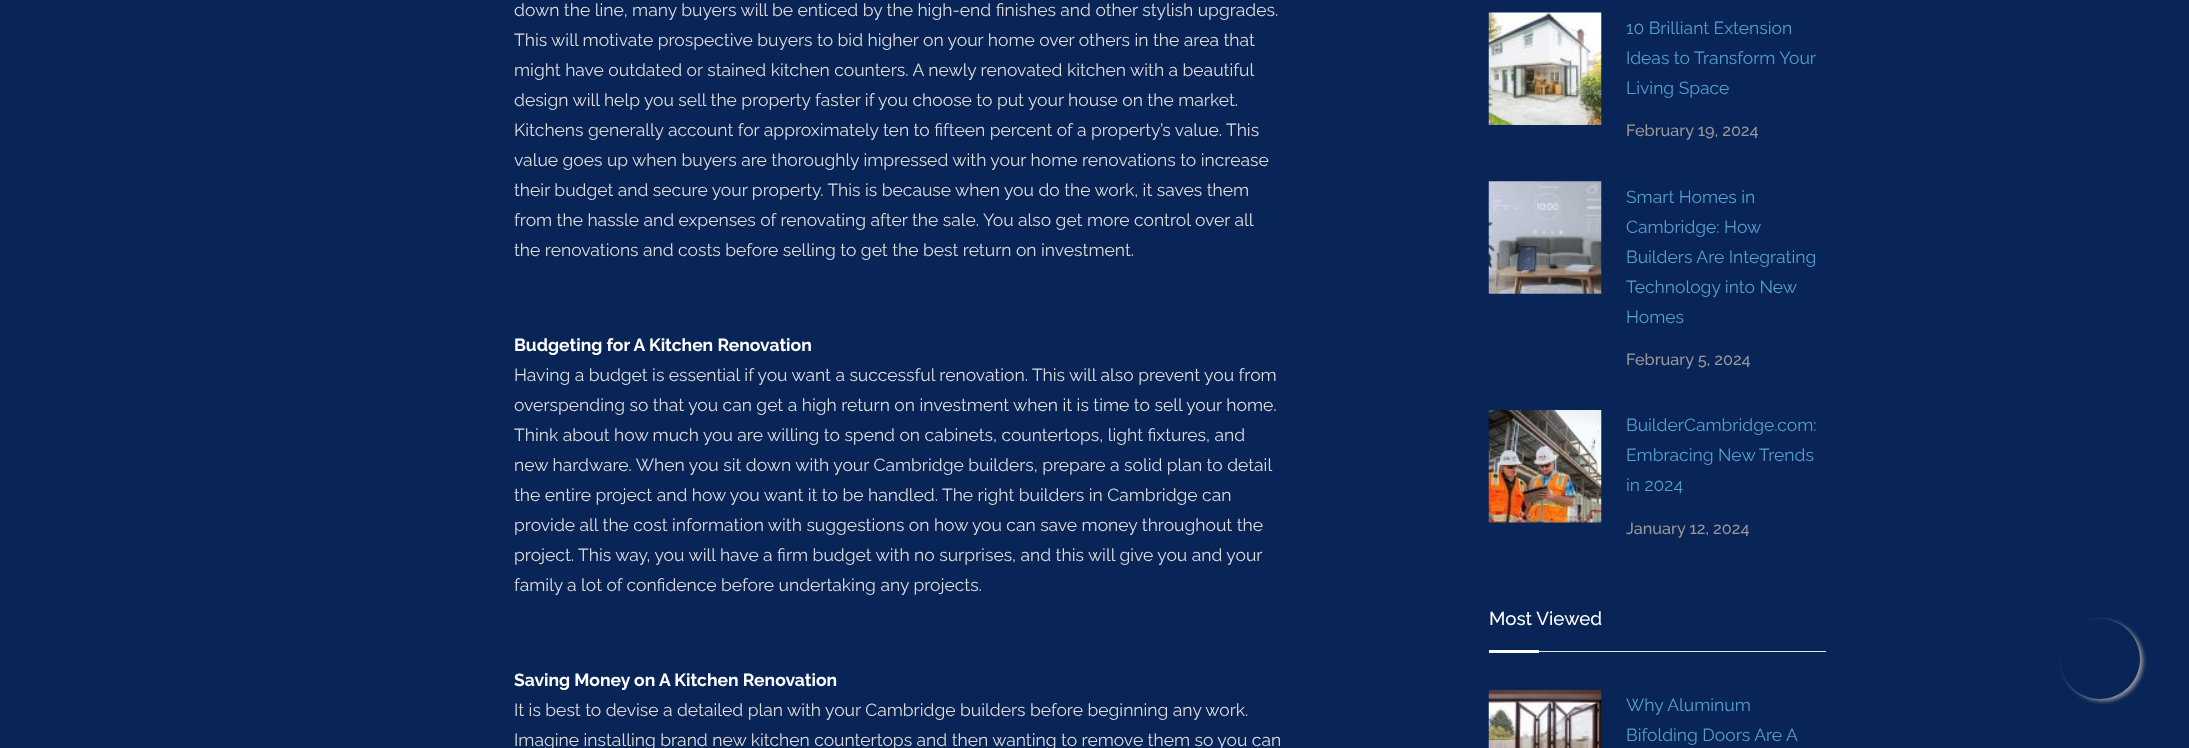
async function draw(canvas) {
  canvas.width = 2189
  canvas.height = 748
  const ctx = canvas.getContext('2d')
  ctx.miterLimit = 4
  ctx.fontKerning = 'normal'
  async function loadImage(src) {
    const img = new Image()
    img.src = src
    await img.decode()
    return img
  }

  ctx.fillStyle = '#092457'
  ctx.fillRect(0, 0, 2189, 748)
  ctx.font = '17.5px Raleway'
  ctx.fillStyle = '#ddd'
  ctx.fillText('down the line, many buyers will be enticed by the high-end finishes and other stylish upgrades.', 514, 16)
  ctx.fillText('This will motivate prospective buyers to bid higher on your home over others in the area that', 514, 46)
  ctx.fillText('might have outdated or stained kitchen counters. A newly renovated kitchen with a beautiful', 514, 76)
  ctx.fillText('design will help you sell the property faster if you choose to put your house on the market.', 514, 106)
  ctx.fillText('Kitchens generally account for approximately ten to fifteen percent of a property’s value. This', 514, 136)
  ctx.fillText('value goes up when buyers are thoroughly impressed with your home renovations to increase', 514, 166)
  ctx.fillText('their budget and secure your property. This is because when you do the work, it saves them', 514, 196)
  ctx.fillText('from the hassle and expenses of renovating after the sale. You also get more control over all', 514, 226)
  ctx.fillText('the renovations and costs before selling to get the best return on investment.', 514, 256)
  ctx.font = 'bold 17.5px Raleway'
  ctx.fillStyle = '#fff'
  ctx.fillText('Budgeting for A Kitchen Renovation', 514, 351)
  ctx.font = '17.5px Raleway'
  ctx.fillStyle = '#ddd'
  ctx.fillText('Having a budget is essential if you want a successful renovation. This will also prevent you from', 514, 381)
  ctx.fillText('overspending so that you can get a high return on investment when it is time to sell your home.', 514, 411)
  ctx.fillText('Think about how much you are willing to spend on cabinets, countertops, light fixtures, and', 514, 441)
  ctx.fillText('new hardware. When you sit down with your Cambridge builders, prepare a solid plan to detail', 514, 471)
  ctx.fillText('the entire project and how you want it to be handled. The right builders in Cambridge can', 514, 501)
  ctx.fillText('provide all the cost information with suggestions on how you can save money throughout the', 514, 531)
  ctx.fillText('project. This way, you will have a firm budget with no surprises, and this will give you and your', 514, 561)
  ctx.fillText('family a lot of confidence before undertaking any projects.', 514, 591)
  ctx.font = 'bold 17.5px Raleway'
  ctx.fillStyle = '#fff'
  ctx.fillText('Saving Money on A Kitchen Renovation', 514, 686)
  ctx.font = '17.5px Raleway'
  ctx.fillStyle = '#ddd'
  ctx.fillText('It is best to devise a detailed plan with your Cambridge builders before beginning any work.', 514, 716)
  ctx.fillText('Imagine installing brand new kitchen countertops and then wanting to remove them so you can', 514, 746)
  ctx.drawImage(await loadImage('image0.png'), 1488, 12, 114, 113)
  ctx.fillStyle = '#53a0cc'
  ctx.fillText('10 Brilliant Extension', 1626, 34)
  ctx.fillText('Ideas to Transform Your', 1626, 64)
  ctx.fillText('Living Space', 1626, 94)
  ctx.font = '500 16.25px Raleway'
  ctx.fillStyle = '#999'
  ctx.fillText('February 19, 2024', 1626, 136)
  ctx.drawImage(await loadImage('image1.png'), 1488, 181, 114, 113)
  ctx.font = '17.5px Raleway'
  ctx.fillStyle = '#53a0cc'
  ctx.fillText('Smart Homes in', 1626, 203)
  ctx.fillText('Cambridge: How', 1626, 233)
  ctx.fillText('Builders Are Integrating', 1626, 263)
  ctx.fillText('Technology into New', 1626, 293)
  ctx.fillText('Homes', 1626, 323)
  ctx.font = '500 16.25px Raleway'
  ctx.fillStyle = '#999'
  ctx.fillText('February 5, 2024', 1626, 365)
  ctx.drawImage(await loadImage('image2.png'), 1488, 410, 114, 113)
  ctx.font = '17.5px Raleway'
  ctx.fillStyle = '#53a0cc'
  ctx.fillText('BuilderCambridge.com:', 1626, 431)
  ctx.fillText('Embracing New Trends', 1626, 461)
  ctx.fillText('in 2024', 1626, 491)
  ctx.font = '500 16.25px Raleway'
  ctx.fillStyle = '#999'
  ctx.fillText('January 12, 2024', 1626, 534)
  ctx.fillStyle = '#e2e6e7'
  ctx.fillRect(1539, 651, 287, 1)
  ctx.font = '500 18.75px Raleway'
  ctx.fillStyle = '#fff'
  ctx.fillText('Most Viewed', 1489, 625)
  ctx.fillRect(1489, 650, 50, 3)
  ctx.drawImage(await loadImage('image3.png'), 1488, 690, 114, 58)
  ctx.font = '17.5px Raleway'
  ctx.fillStyle = '#53a0cc'
  ctx.fillText('Why Aluminum', 1626, 711)
  ctx.fillText('Bifolding Doors Are A', 1626, 741)
  ctx.save()
  ctx.beginPath()
  ctx.moveTo(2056, 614)
  ctx.lineTo(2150, 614)
  ctx.lineTo(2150, 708)
  ctx.lineTo(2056, 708)
  ctx.closePath()
  ctx.moveTo(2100, 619)
  ctx.bezierCurveTo(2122, 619, 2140, 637, 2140, 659)
  ctx.bezierCurveTo(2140, 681, 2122, 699, 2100, 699)
  ctx.bezierCurveTo(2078, 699, 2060, 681, 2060, 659)
  ctx.bezierCurveTo(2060, 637, 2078, 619, 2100, 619)
  ctx.closePath()
  ctx.clip('evenodd')
  ctx.fillStyle = '#999'
  ctx.filter = 'blur(2px)'
  ctx.beginPath()
  ctx.roundRect(2063, 621, 80, 80, 40)
  ctx.fill()
  ctx.filter = 'none'
  ctx.restore()
}

draw(document.querySelector('canvas'))
